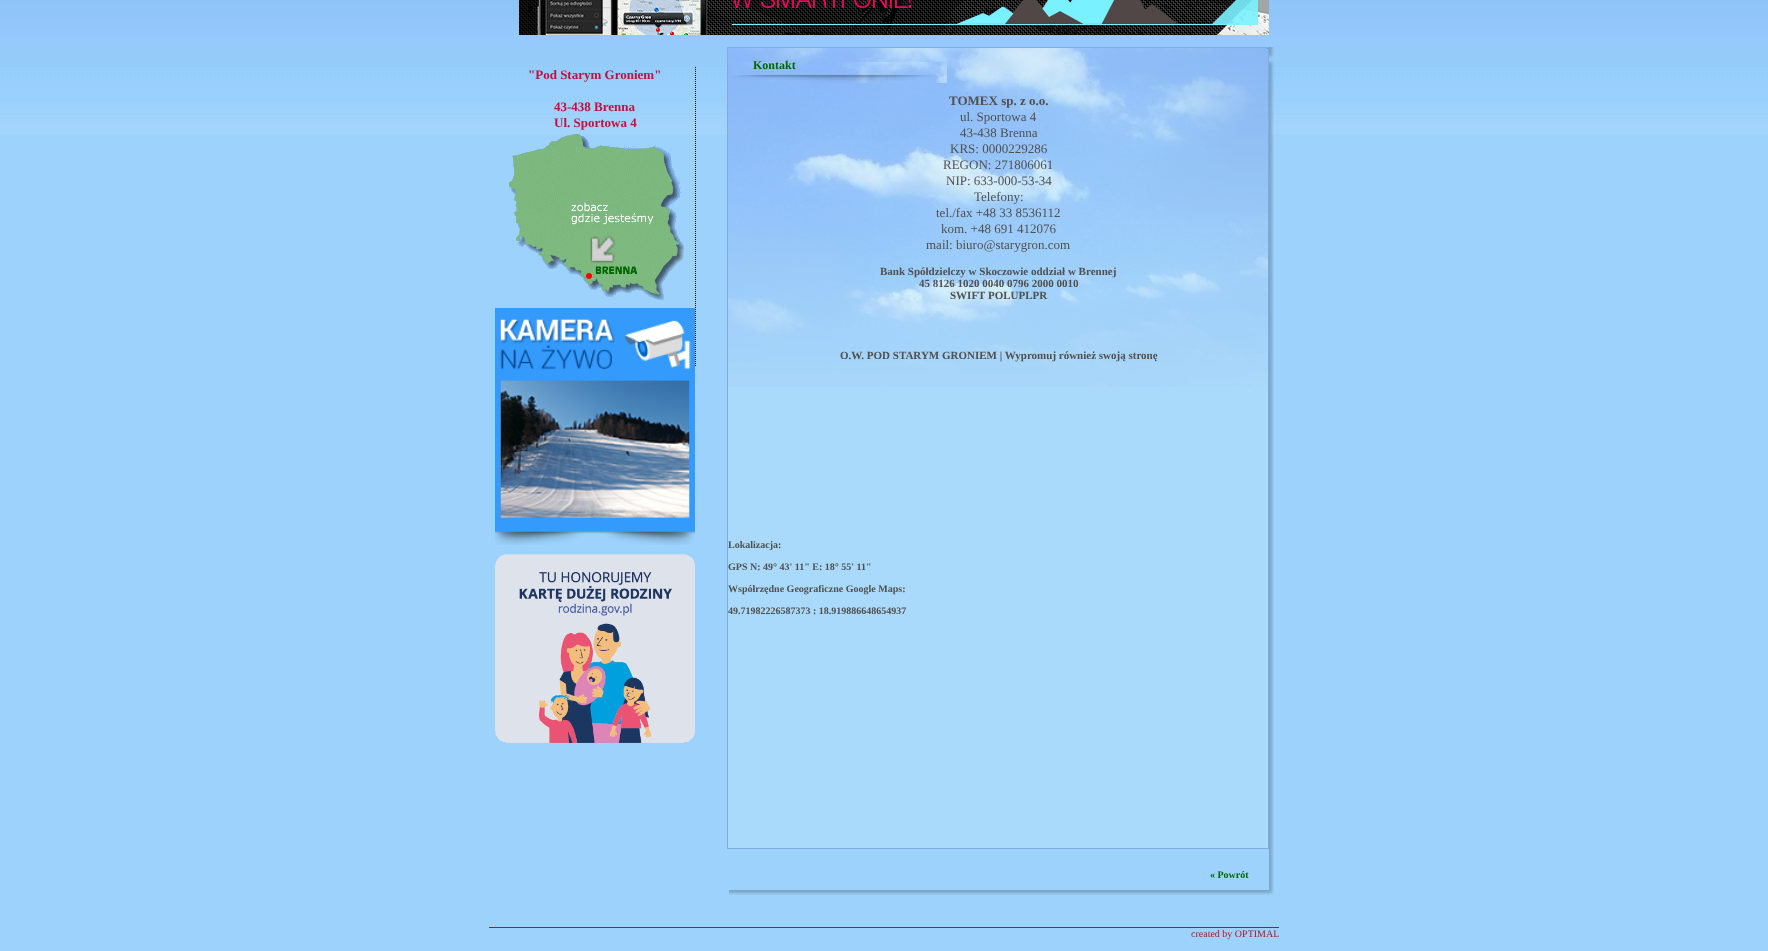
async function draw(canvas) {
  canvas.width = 1768
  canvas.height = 951
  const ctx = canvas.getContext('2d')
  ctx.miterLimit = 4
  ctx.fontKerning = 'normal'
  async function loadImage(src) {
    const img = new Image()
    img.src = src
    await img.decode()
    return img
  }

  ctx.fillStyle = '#9cd2fc'
  ctx.fillRect(0, 0, 1768, 951)
  ctx.drawImage(await loadImage('image0.png'), 0, 0, 1768, 134)
  ctx.drawImage(await loadImage('image1.png'), 519, 0, 750, 35)
  ctx.beginPath()
  ctx.moveTo(695.5, 67)
  ctx.lineTo(695.5, 367)
  ctx.strokeStyle = '#000'
  ctx.setLineDash([1, 1])
  ctx.stroke()
  ctx.font = 'bold 13px Liberation Serif'
  ctx.fillStyle = '#c40e3d'
  ctx.fillText('"Pod Starym Groniem"', 528, 79)
  ctx.fillText('43-438 Brenna', 554, 111)
  ctx.fillText('Ul. Sportowa 4', 554, 127)
  ctx.drawImage(await loadImage('image2.png'), 505, 134, 179, 166)
  ctx.drawImage(await loadImage('image3.png'), 495, 308, 200, 237)
  ctx.drawImage(await loadImage('image4.png'), 495, 554, 200, 189)
  ctx.drawImage(await loadImage('image5.png'), 729, 47, 545, 848)
  ctx.fillStyle = '#a9dafb'
  ctx.fillRect(728, 387, 540, 461)
  ctx.drawImage(await loadImage('image6.png'), 728, 48, 540, 339)
  ctx.strokeStyle = '#84aae3'
  ctx.setLineDash([])
  ctx.strokeRect(727.5, 47.5, 541, 801)
  ctx.drawImage(await loadImage('image7.png'), 731, 62, 216, 21)
  ctx.font = 'bold 12px Liberation Serif'
  ctx.fillStyle = '#060'
  ctx.fillText('Kontakt', 753, 69)
  ctx.font = 'bold 13px Liberation Serif'
  ctx.fillStyle = '#505050'
  ctx.fillText('TOMEX sp. z o.o.', 949, 105)
  ctx.font = '13px Liberation Serif'
  ctx.fillText('ul. Sportowa 4', 960, 121)
  ctx.fillText('43-438 Brenna', 960, 137)
  ctx.fillText('KRS: 0000229286', 950, 153)
  ctx.fillText('REGON: 271806061', 943, 169)
  ctx.fillText('NIP: 633-000-53-34', 946, 185)
  ctx.fillText('Telefony:', 974, 201)
  ctx.fillText('tel./fax +48 33 8536112', 936, 217)
  ctx.fillText('kom. +48 691 412076', 941, 233)
  ctx.fillText('mail: biuro@starygron.com', 926, 249)
  ctx.font = 'bold 11px Liberation Serif'
  ctx.fillText('Bank Spółdzielczy w Skoczowie oddział w Brennej', 880, 275)
  ctx.fillText('45 8126 1020 0040 0796 2000 0010', 919, 287)
  ctx.fillText('SWIFT POLUPLPR', 950, 299)
  ctx.fillText('O.W. POD STARYM GRONIEM | Wypromuj również swoją stronę', 840, 359)
  ctx.font = 'bold 10px Liberation Serif'
  ctx.fillText('Lokalizacja:', 728, 548)
  ctx.fillText('GPS N: 49° 43\' 11" E: 18° 55\' 11"', 728, 570)
  ctx.fillText('Współrzędne Geograficzne Google Maps:', 728, 592)
  ctx.fillText('49.71982226587373 : 18.919886648654937', 728, 614)
  ctx.fillStyle = '#060'
  ctx.fillText('« Powrót', 1210, 878)
  ctx.fillStyle = '#ab1a21'
  ctx.fillRect(489, 927, 790, 1)
  ctx.font = '10px Liberation Serif'
  ctx.fillText('created by OPTIMAL', 1191, 937)
}

draw(document.querySelector('canvas'))
